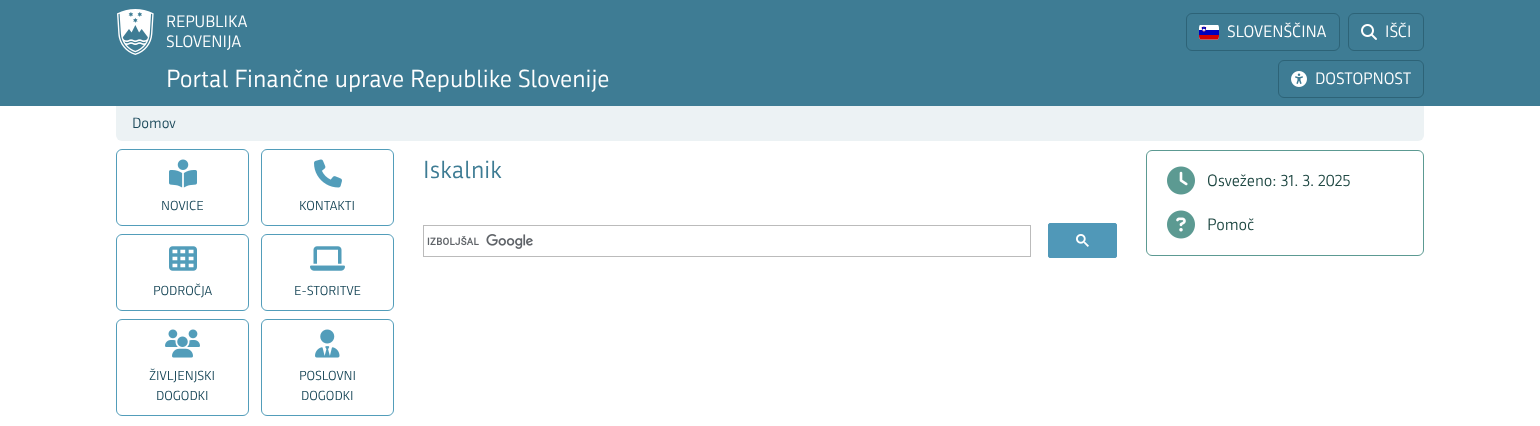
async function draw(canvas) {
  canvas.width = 1540
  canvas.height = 426
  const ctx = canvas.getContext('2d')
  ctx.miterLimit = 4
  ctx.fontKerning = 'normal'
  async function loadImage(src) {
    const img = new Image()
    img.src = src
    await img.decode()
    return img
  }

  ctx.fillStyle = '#fff'
  ctx.fillRect(0, 0, 1540, 426)
  ctx.fillStyle = '#3e7c94'
  ctx.fillRect(0, 0, 1540, 106)
  ctx.drawImage(await loadImage('image0.png'), 117, 9, 37, 46)
  ctx.font = '16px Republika'
  ctx.fillStyle = '#fff'
  ctx.fillText('REPUBLIKA', 166, 27)
  ctx.fillText('SLOVENIJA', 166, 47)
  ctx.beginPath()
  ctx.roundRect(1186.5, 13.5, 153, 37, 5.5)
  ctx.strokeStyle = '#2d6377'
  ctx.stroke()
  ctx.drawImage(await loadImage('image1.png'), 1199, 25, 20, 15)
  ctx.fillText('SLOVENŠČINA', 1227, 37)
  ctx.beginPath()
  ctx.roundRect(1348.5, 13.5, 75, 37, 5.5)
  ctx.stroke()
  ctx.drawImage(await loadImage('image2.png'), 1361, 24, 16, 16)
  ctx.fillText('IŠČI', 1385, 37)
  ctx.font = '24px Republika'
  ctx.fillText('Portal Finančne uprave Republike Slovenije', 166, 87)
  ctx.beginPath()
  ctx.roundRect(1278.5, 60.5, 145, 37, 5.5)
  ctx.stroke()
  ctx.drawImage(await loadImage('image3.png'), 1291, 71, 16, 16)
  ctx.font = '16px Republika'
  ctx.fillText('DOSTOPNOST', 1315, 84)
  ctx.fillStyle = '#ecf2f4'
  ctx.beginPath()
  ctx.roundRect(116, 106, 1308, 35, [0, 0, 6, 6])
  ctx.fill()
  ctx.font = '14.5px Republika'
  ctx.fillStyle = '#1b495a'
  ctx.fillText('Domov', 132, 128)
  ctx.font = '24px Republika'
  ctx.fillStyle = '#3e7c94'
  ctx.fillText('Iskalnik', 423, 178)
  ctx.strokeStyle = '#bbb'
  ctx.strokeRect(423.5, 225.5, 607, 31)
  ctx.drawImage(await loadImage('image4.png'), 427, 234, 106, 15)
  ctx.fillStyle = '#5098b8'
  ctx.beginPath()
  ctx.roundRect(1048.5, 223.5, 68, 34, 1.5)
  ctx.fill()
  ctx.strokeStyle = '#5098b8'
  ctx.stroke()
  ctx.drawImage(await loadImage('image5.png'), 1076, 234, 13, 13)
  ctx.beginPath()
  ctx.roundRect(116.5, 149.5, 132, 76, 5.5)
  ctx.strokeStyle = '#529dba'
  ctx.stroke()
  ctx.drawImage(await loadImage('image6.png'), 169, 159, 28, 29)
  ctx.font = '12.75px Republika'
  ctx.fillStyle = '#1b495a'
  ctx.fillText('NOVICE', 161, 210)
  ctx.beginPath()
  ctx.roundRect(261.5, 149.5, 132, 76, 5.5)
  ctx.stroke()
  ctx.drawImage(await loadImage('image7.png'), 314, 159, 28, 29)
  ctx.fillText('KONTAKTI', 299, 210)
  ctx.beginPath()
  ctx.roundRect(116.5, 234.5, 132, 76, 5.5)
  ctx.stroke()
  ctx.drawImage(await loadImage('image8.png'), 169, 246, 28, 25)
  ctx.fillText('PODROČJA', 153, 295)
  ctx.beginPath()
  ctx.roundRect(261.5, 234.5, 132, 76, 5.5)
  ctx.stroke()
  ctx.drawImage(await loadImage('image9.png'), 310, 246, 35, 25)
  ctx.fillText('E-STORITVE', 294, 295)
  ctx.beginPath()
  ctx.roundRect(116.5, 319.5, 132, 96, 5.5)
  ctx.stroke()
  ctx.drawImage(await loadImage('image10.png'), 165, 329, 35, 29)
  ctx.fillText('ŽIVLJENJSKI', 149, 380)
  ctx.fillText('DOGODKI', 156, 400)
  ctx.beginPath()
  ctx.roundRect(261.5, 319.5, 132, 96, 5.5)
  ctx.stroke()
  ctx.drawImage(await loadImage('image11.png'), 315, 329, 25, 29)
  ctx.fillText('POSLOVNI', 299, 380)
  ctx.fillText('DOGODKI', 301, 400)
  ctx.beginPath()
  ctx.roundRect(1146.5, 150.5, 277, 105, 5.5)
  ctx.strokeStyle = '#5c9a92'
  ctx.stroke()
  ctx.drawImage(await loadImage('image12.png'), 1167, 166, 28, 29)
  ctx.font = '16px Republika'
  ctx.fillStyle = '#1f4843'
  ctx.fillText('Osveženo: 31. 3. 2025', 1207, 186)
  ctx.drawImage(await loadImage('image13.png'), 1167, 210, 28, 29)
  ctx.fillText('Pomoč', 1207, 230)
}

draw(document.querySelector('canvas'))
